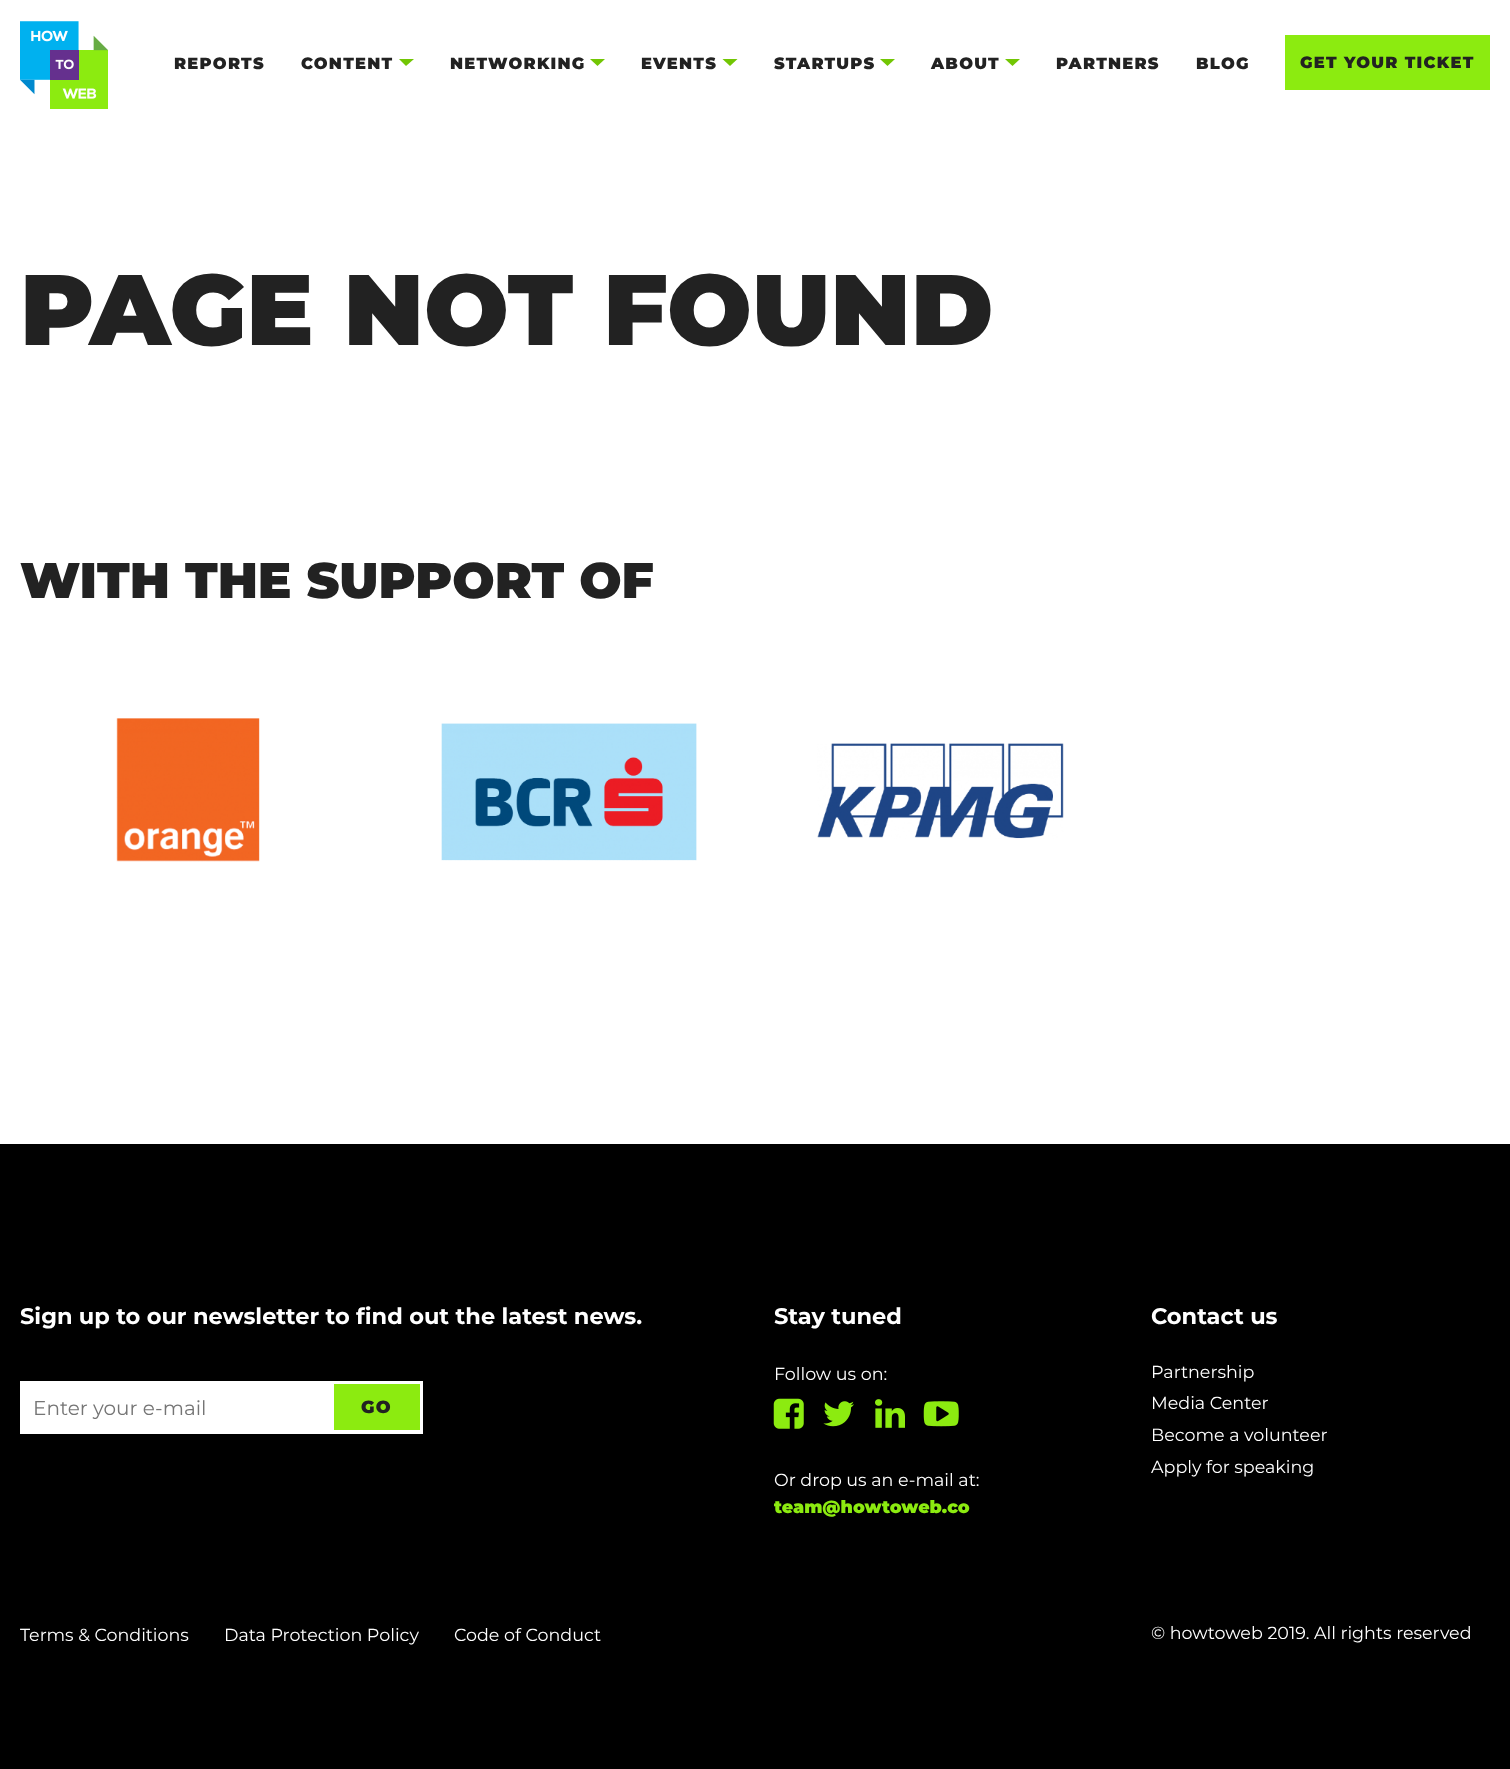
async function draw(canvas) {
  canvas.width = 1510
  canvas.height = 1769
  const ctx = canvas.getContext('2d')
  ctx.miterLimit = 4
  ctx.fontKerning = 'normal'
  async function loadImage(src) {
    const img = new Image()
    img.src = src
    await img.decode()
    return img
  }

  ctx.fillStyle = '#fff'
  ctx.fillRect(0, 0, 1510, 1769)
  ctx.drawImage(await loadImage('image0.png'), 20, 21, 88, 88)
  ctx.letterSpacing = '1.25px'
  ctx.font = '900 16.25px Montserrat'
  ctx.fillStyle = '#222'
  ctx.fillText('REPORTS', 174, 69)
  ctx.fillText('CONTENT', 301, 69)
  ctx.fillStyle = '#72c604'
  ctx.beginPath()
  ctx.moveTo(414, 59)
  ctx.lineTo(399, 59)
  ctx.lineTo(406, 66)
  ctx.closePath()
  ctx.fill('evenodd')
  ctx.fillStyle = '#222'
  ctx.fillText('NETWORKING', 450, 69)
  ctx.fillStyle = '#72c604'
  ctx.beginPath()
  ctx.moveTo(605, 59)
  ctx.lineTo(590, 59)
  ctx.lineTo(597.5, 66)
  ctx.closePath()
  ctx.fill('evenodd')
  ctx.fillStyle = '#222'
  ctx.fillText('EVENTS', 641, 69)
  ctx.fillStyle = '#72c604'
  ctx.beginPath()
  ctx.moveTo(737.5, 59)
  ctx.lineTo(722.5, 59)
  ctx.lineTo(730, 66)
  ctx.closePath()
  ctx.fill('evenodd')
  ctx.fillStyle = '#222'
  ctx.fillText('STARTUPS', 774, 69)
  ctx.fillStyle = '#72c604'
  ctx.beginPath()
  ctx.moveTo(895, 59)
  ctx.lineTo(880, 59)
  ctx.lineTo(887.5, 66)
  ctx.closePath()
  ctx.fill('evenodd')
  ctx.fillStyle = '#222'
  ctx.fillText('ABOUT', 931, 69)
  ctx.fillStyle = '#72c604'
  ctx.beginPath()
  ctx.moveTo(1020, 59)
  ctx.lineTo(1005, 59)
  ctx.lineTo(1012.5, 66)
  ctx.closePath()
  ctx.fill('evenodd')
  ctx.fillStyle = '#222'
  ctx.fillText('PARTNERS', 1056, 69)
  ctx.fillText('BLOG', 1196, 69)
  ctx.fillStyle = '#8ceb10'
  ctx.fillRect(1285, 35, 205, 55)
  ctx.fillStyle = '#222'
  ctx.fillText('GET YOUR TICKET', 1300, 68)
  ctx.letterSpacing = '0px'
  ctx.font = '900 100px Montserrat'
  ctx.fillText('PAGE NOT FOUND', 20, 345)
  ctx.font = '900 50px Montserrat'
  ctx.fillText('WITH THE SUPPORT OF', 20, 598)
  ctx.drawImage(await loadImage('image1.png'), 116, 718, 144, 144)
  ctx.drawImage(await loadImage('image2.png'), 441, 723, 256, 138)
  ctx.drawImage(await loadImage('image3.png'), 817, 743, 247, 96)
  ctx.fillStyle = '#000'
  ctx.fillRect(0, 1144, 1510, 625)
  ctx.font = 'bold 22.5px Montserrat'
  ctx.fillStyle = '#fff'
  ctx.fillText('Sign up to our newsletter to find out the latest news.', 20, 1324)
  ctx.strokeStyle = '#fff'
  ctx.lineWidth = 3
  ctx.strokeRect(21.5, 1382.5, 400, 50)
  ctx.fillRect(23, 1384, 311, 47)
  ctx.font = '20px Montserrat'
  ctx.fillStyle = '#757575'
  ctx.fillText('Enter your e-mail', 33, 1415)
  ctx.fillStyle = '#fff'
  ctx.fillRect(334, 1430, 86, 1)
  ctx.fillStyle = '#8ceb10'
  ctx.fillRect(334, 1384, 86, 46)
  ctx.letterSpacing = '1.25px'
  ctx.font = '900 17.5px Montserrat'
  ctx.fillStyle = '#222'
  ctx.fillText('GO', 361, 1413)
  ctx.letterSpacing = '0px'
  ctx.font = 'bold 22.5px Montserrat'
  ctx.fillStyle = '#fff'
  ctx.fillText('Stay tuned', 774, 1324)
  ctx.font = '17.5px Montserrat'
  ctx.fillText('Follow us on:', 774, 1380)
  ctx.drawImage(await loadImage('image4.png'), 773, 1398, 31, 31)
  ctx.drawImage(await loadImage('image5.png'), 823, 1401, 31, 26)
  ctx.drawImage(await loadImage('image6.png'), 875, 1399, 30, 29)
  ctx.drawImage(await loadImage('image7.png'), 923, 1401, 36, 26)
  ctx.fillText('Or drop us an e-mail at:', 774, 1486)
  ctx.font = '900 17.5px Montserrat'
  ctx.fillStyle = '#8ceb10'
  ctx.fillText('team@howtoweb.co', 774, 1513)
  ctx.font = 'bold 22.5px Montserrat'
  ctx.fillStyle = '#fff'
  ctx.fillText('Contact us', 1151, 1324)
  ctx.font = '17.5px Montserrat'
  ctx.fillText('Partnership', 1151, 1378)
  ctx.fillText('Media Center', 1151, 1409)
  ctx.fillText('Become a volunteer', 1151, 1441)
  ctx.fillText('Apply for speaking', 1151, 1473)
  ctx.fillText('Terms & Conditions', 20, 1641)
  ctx.fillText('Data Protection Policy', 224, 1641)
  ctx.fillText('Code of Conduct', 454, 1641)
  ctx.fillText('© howtoweb 2019. All rights reserved', 1151, 1639)
}

draw(document.querySelector('canvas'))
